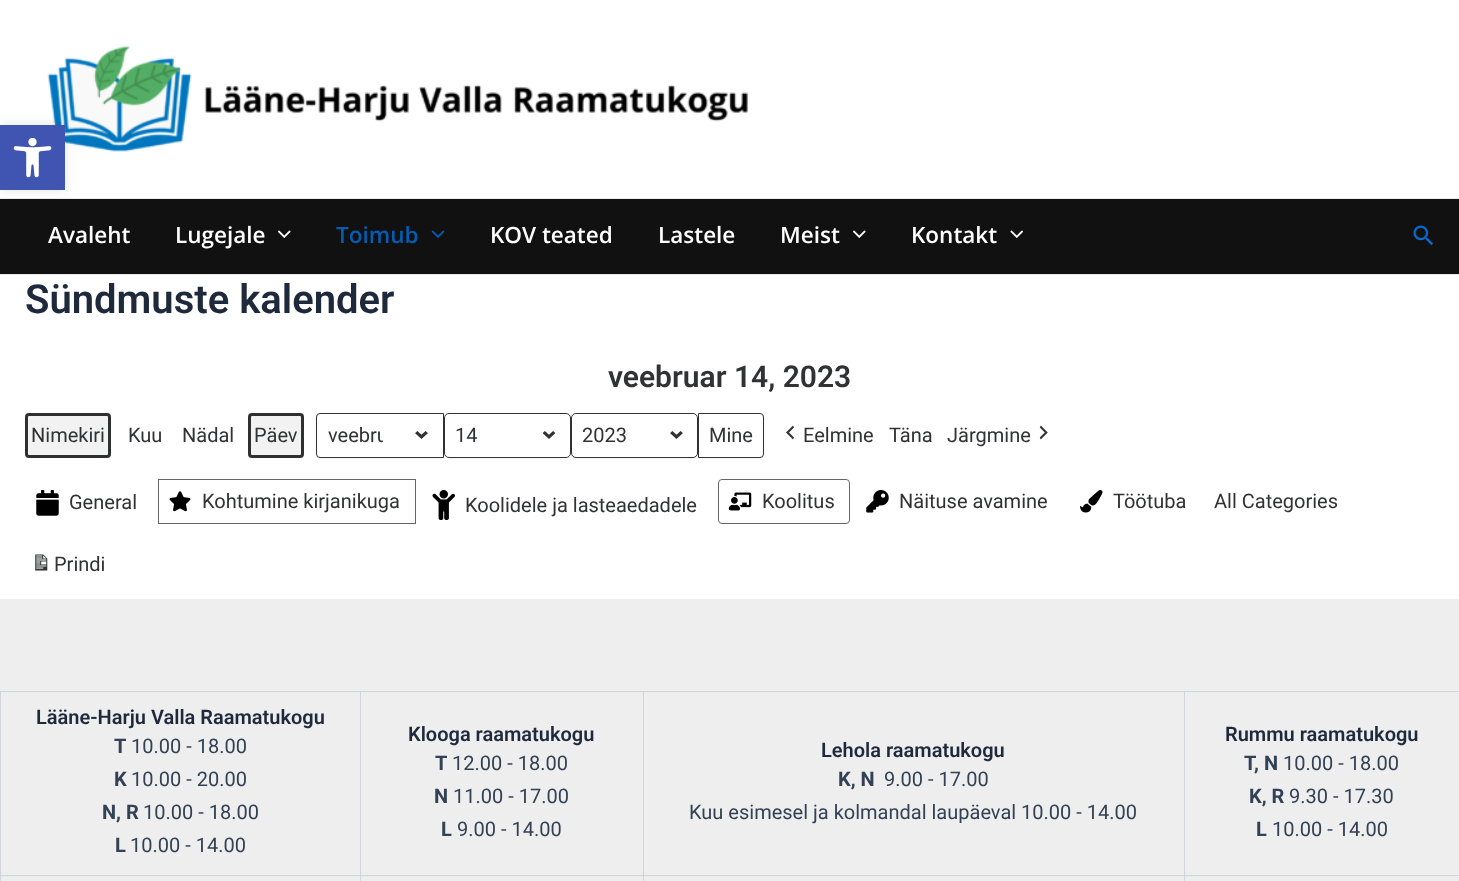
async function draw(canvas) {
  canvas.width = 1459
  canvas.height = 881
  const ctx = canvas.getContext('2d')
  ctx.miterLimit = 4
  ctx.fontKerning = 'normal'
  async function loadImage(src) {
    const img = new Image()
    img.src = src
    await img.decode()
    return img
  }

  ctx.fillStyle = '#fff'
  ctx.fillRect(0, 0, 1459, 881)
  ctx.fillStyle = '#eaeaea'
  ctx.fillRect(0, 198, 1459, 1)
  ctx.drawImage(await loadImage('image1.png'), 47, 46, 702, 106)
  ctx.fillStyle = '#111'
  ctx.fillRect(0, 199, 1459, 75)
  ctx.fillStyle = '#0000001a'
  ctx.filter = 'blur(6px)'
  ctx.beginPath()
  ctx.rect(0, 125, 65, 65)
  ctx.fill()
  ctx.filter = 'none'
  ctx.fillStyle = '#4054b2'
  ctx.fillRect(0, 125, 65, 65)
  ctx.drawImage(await loadImage('image0.png'), 13, 138, 39, 40)
  ctx.fillStyle = '#eaeaea'
  ctx.fillRect(0, 274, 1459, 1)
  ctx.font = '600 22.5px Open Sans'
  ctx.fillStyle = '#fff'
  ctx.fillText('Avaleht', 48, 243)
  ctx.fillText('Lugejale', 175, 243)
  ctx.drawImage(await loadImage('image2.png'), 278, 230, 13, 8)
  ctx.fillStyle = '#045cb4'
  ctx.fillText('Toimub', 336, 243)
  ctx.drawImage(await loadImage('image3.png'), 431, 230, 14, 8)
  ctx.fillStyle = '#fff'
  ctx.fillText('KOV teated', 490, 243)
  ctx.fillText('Lastele', 658, 243)
  ctx.fillText('Meist', 780, 243)
  ctx.drawImage(await loadImage('image4.png'), 853, 230, 13, 8)
  ctx.fillText('Kontakt', 911, 243)
  ctx.drawImage(await loadImage('image5.png'), 1010, 230, 13, 8)
  ctx.drawImage(await loadImage('image6.png'), 1413, 225, 20, 21)
  ctx.font = '600 40px Roboto'
  ctx.fillStyle = '#1e293b'
  ctx.fillText('Sündmuste kalender', 25, 313)
  ctx.font = '600 30px Roboto'
  ctx.fillStyle = '#313233'
  ctx.fillText('veebruar 14, 2023', 608, 387)
  ctx.fillStyle = '#f2f2f2'
  ctx.beginPath()
  ctx.roundRect(25, 413, 86, 45, 4)
  ctx.fill()
  ctx.beginPath()
  ctx.roundRect(26.5, 414.5, 83, 42, 2.5)
  ctx.strokeStyle = '#2f3030'
  ctx.lineWidth = 3
  ctx.stroke()
  ctx.font = '20px Roboto'
  ctx.fillStyle = '#313233'
  ctx.fillText('Nimekiri', 31, 442)
  ctx.fillText('Kuu', 128, 442)
  ctx.fillText('Nädal', 182, 442)
  ctx.fillStyle = '#f2f2f2'
  ctx.beginPath()
  ctx.roundRect(248, 413, 56, 45, 4)
  ctx.fill()
  ctx.beginPath()
  ctx.roundRect(249.5, 414.5, 53, 42, 2.5)
  ctx.stroke()
  ctx.fillStyle = '#313233'
  ctx.fillText('Päev', 254, 442)
  ctx.fillStyle = '#0000000d'
  ctx.filter = 'blur(1px)'
  ctx.beginPath()
  ctx.roundRect(316, 414, 128, 45, 4)
  ctx.fill()
  ctx.filter = 'none'
  ctx.fillStyle = '#fff'
  ctx.beginPath()
  ctx.roundRect(316, 413, 128, 45, [4, 0, 0, 4])
  ctx.fill()
  ctx.drawImage(await loadImage('image7.png'), 415, 431, 13, 8)
  ctx.beginPath()
  ctx.roundRect(316.5, 413.5, 127, 44, [3.5, 0, 0, 3.5])
  ctx.strokeStyle = '#313233'
  ctx.lineWidth = 1
  ctx.stroke()
  ctx.save()
  ctx.beginPath()
  ctx.rect(328, 419, 55, 32)
  ctx.clip()
  ctx.fillStyle = '#313233'
  ctx.fillText('veebru', 328, 442)
  ctx.restore()
  ctx.fillStyle = '#0000000d'
  ctx.filter = 'blur(1px)'
  ctx.beginPath()
  ctx.roundRect(444, 414, 127, 45, 5)
  ctx.fill()
  ctx.filter = 'none'
  ctx.fillStyle = '#fff'
  ctx.beginPath()
  ctx.roundRect(444, 413, 127, 45, 5)
  ctx.fill()
  ctx.drawImage(await loadImage('image8.png'), 543, 431, 12, 8)
  ctx.beginPath()
  ctx.roundRect(444.5, 413.5, 126, 44, 4.5)
  ctx.stroke()
  ctx.fillStyle = '#313233'
  ctx.fillText('14', 455, 442)
  ctx.fillStyle = '#0000000d'
  ctx.filter = 'blur(1px)'
  ctx.beginPath()
  ctx.roundRect(571, 414, 127, 45, 5)
  ctx.fill()
  ctx.filter = 'none'
  ctx.fillStyle = '#fff'
  ctx.beginPath()
  ctx.roundRect(571, 413, 127, 45, 5)
  ctx.fill()
  ctx.drawImage(await loadImage('image7.png'), 670, 431, 13, 8)
  ctx.beginPath()
  ctx.roundRect(571.5, 413.5, 126, 44, 4.5)
  ctx.stroke()
  ctx.fillStyle = '#313233'
  ctx.fillText('2023', 582, 442)
  ctx.fillStyle = '#0000000d'
  ctx.filter = 'blur(1px)'
  ctx.beginPath()
  ctx.roundRect(698, 414, 66, 45, 4)
  ctx.fill()
  ctx.filter = 'none'
  ctx.fillStyle = '#fff'
  ctx.beginPath()
  ctx.roundRect(698.5, 413.5, 65, 44, [0, 3.5, 3.5, 0])
  ctx.fill()
  ctx.stroke()
  ctx.fillStyle = '#313233'
  ctx.fillText('Mine', 709, 442)
  ctx.drawImage(await loadImage('image9.png'), 786, 425, 8, 15)
  ctx.fillText('Eelmine', 803, 442)
  ctx.fillText('Täna', 889, 442)
  ctx.fillText('Järgmine', 947, 442)
  ctx.drawImage(await loadImage('image10.png'), 1039, 425, 9, 15)
  ctx.drawImage(await loadImage('image11.png'), 36, 490, 23, 26)
  ctx.fillText('General', 69, 509)
  ctx.strokeStyle = '#666'
  ctx.strokeRect(158.5, 479.5, 257, 44)
  ctx.drawImage(await loadImage('image12.png'), 169, 491, 22, 21)
  ctx.fillText('Kohtumine kirjanikuga', 202, 508)
  ctx.drawImage(await loadImage('image13.png'), 432, 490, 23, 30)
  ctx.fillText('Koolidele ja lasteaedadele', 465, 512)
  ctx.beginPath()
  ctx.roundRect(718.5, 479.5, 131, 44, 3.5)
  ctx.stroke()
  ctx.drawImage(await loadImage('image14.png'), 728, 492, 24, 19)
  ctx.fillText('Koolitus', 762, 508)
  ctx.drawImage(await loadImage('image15.png'), 866, 490, 23, 23)
  ctx.fillText('Näituse avamine', 899, 508)
  ctx.drawImage(await loadImage('image16.png'), 1080, 490, 23, 23)
  ctx.fillText('Töötuba', 1113, 508)
  ctx.fillText('All Categories', 1214, 508)
  ctx.drawImage(await loadImage('image17.png'), 35, 554, 13, 17)
  ctx.fillText('Prindi', 54, 571)
  ctx.fillStyle = '#eee'
  ctx.fillRect(0, 599, 1459, 282)
  ctx.fillStyle = '#d1d5db'
  ctx.fillRect(0, 691, 1459, 1)
  ctx.fillRect(0, 691, 1, 190)
  ctx.fillRect(1184, 875, 1, 6)
  ctx.fillRect(1184, 875, 275, 1)
  ctx.fillRect(1184, 691, 1, 185)
  ctx.fillRect(643, 875, 1, 6)
  ctx.fillRect(643, 875, 542, 1)
  ctx.fillRect(643, 691, 1, 185)
  ctx.fillRect(360, 875, 1, 6)
  ctx.fillRect(360, 875, 284, 1)
  ctx.fillRect(360, 691, 1, 185)
  ctx.fillRect(0, 875, 361, 1)
  ctx.font = '600 20px Roboto'
  ctx.fillStyle = '#1e293b'
  ctx.fillText('Lääne-Harju Valla Raamatukogu', 36, 724)
  ctx.font = 'bold 20px Roboto'
  ctx.fillStyle = '#334155'
  ctx.fillText('T', 114, 753)
  ctx.font = '20px Roboto'
  ctx.fillText('10.00 - 18.00', 131, 753)
  ctx.font = 'bold 20px Roboto'
  ctx.fillText('K', 114, 786)
  ctx.font = '20px Roboto'
  ctx.fillText('10.00 - 20.00', 131, 786)
  ctx.font = 'bold 20px Roboto'
  ctx.fillText('N, R', 102, 819)
  ctx.font = '20px Roboto'
  ctx.fillText('10.00 - 18.00', 143, 819)
  ctx.font = 'bold 20px Roboto'
  ctx.fillText('L', 115, 852)
  ctx.font = '20px Roboto'
  ctx.fillText('10.00 - 14.00', 130, 852)
  ctx.font = '600 20px Roboto'
  ctx.fillStyle = '#1e293b'
  ctx.fillText('Klooga raamatukogu', 408, 741)
  ctx.font = 'bold 20px Roboto'
  ctx.fillStyle = '#334155'
  ctx.fillText('T', 435, 770)
  ctx.font = '20px Roboto'
  ctx.fillText('12.00 - 18.00', 452, 770)
  ctx.font = 'bold 20px Roboto'
  ctx.fillText('N', 434, 803)
  ctx.font = '20px Roboto'
  ctx.fillText('11.00 - 17.00', 453, 803)
  ctx.font = 'bold 20px Roboto'
  ctx.fillText('L', 441, 836)
  ctx.font = '20px Roboto'
  ctx.fillText('9.00 - 14.00', 457, 836)
  ctx.font = '600 20px Roboto'
  ctx.fillStyle = '#1e293b'
  ctx.fillText('Lehola raamatukogu', 821, 757)
  ctx.font = 'bold 20px Roboto'
  ctx.fillStyle = '#334155'
  ctx.fillText('K, N', 838, 786)
  ctx.font = '20px Roboto'
  ctx.fillText('9.00 - 17.00', 884, 786)
  ctx.fillText('Kuu esimesel ja kolmandal laupäeval 10.00 - 14.00', 689, 819)
  ctx.font = '600 20px Roboto'
  ctx.fillStyle = '#1e293b'
  ctx.fillText('Rummu raamatukogu', 1225, 741)
  ctx.font = 'bold 20px Roboto'
  ctx.fillStyle = '#334155'
  ctx.fillText('T, N', 1244, 770)
  ctx.font = '20px Roboto'
  ctx.fillText('10.00 - 18.00', 1283, 770)
  ctx.font = 'bold 20px Roboto'
  ctx.fillText('K, R', 1249, 803)
  ctx.font = '20px Roboto'
  ctx.fillText('9.30 - 17.30', 1289, 803)
  ctx.font = 'bold 20px Roboto'
  ctx.fillText('L', 1256, 836)
  ctx.font = '20px Roboto'
  ctx.fillText('10.00 - 14.00', 1272, 836)
}

draw(document.querySelector('canvas'))
